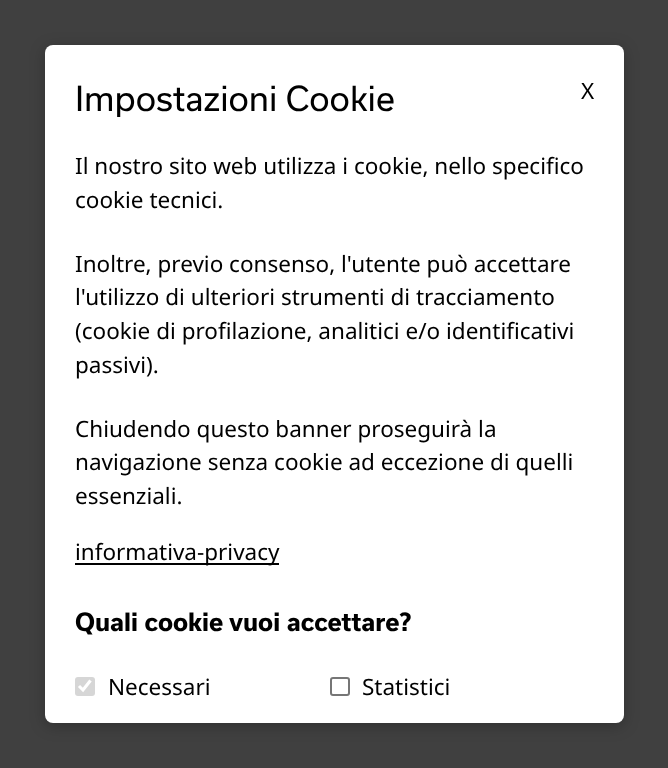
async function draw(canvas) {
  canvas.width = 668
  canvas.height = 768
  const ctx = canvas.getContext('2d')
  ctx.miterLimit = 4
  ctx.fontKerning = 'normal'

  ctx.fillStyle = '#404040'
  ctx.fillRect(0, 0, 668, 768)
  ctx.fillStyle = '#00000040'
  ctx.filter = 'blur(7.5px)'
  ctx.beginPath()
  ctx.roundRect(45, 48, 579, 678, 8)
  ctx.fill()
  ctx.filter = 'none'
  ctx.fillStyle = '#fff'
  ctx.beginPath()
  ctx.roundRect(45, 45, 579, 678, 8)
  ctx.fill()
  ctx.font = '33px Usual'
  ctx.fillStyle = '#000'
  ctx.fillText('Impostazioni Cookie', 75, 111)
  ctx.font = '22.5px Noto Sans'
  ctx.fillText('X', 581, 99)
  ctx.fillText('Il nostro sito web utilizza i cookie, nello specifico', 75, 174)
  ctx.fillText('cookie tecnici.', 75, 208)
  ctx.fillText('Inoltre, previo consenso, l\'utente può accettare', 75, 272)
  ctx.fillText('l\'utilizzo di ulteriori strumenti di tracciamento', 75, 305)
  ctx.fillText('(cookie di profilazione, analitici e/o identificativi', 75, 339)
  ctx.fillText('passivi).', 75, 373)
  ctx.fillText('Chiudendo questo banner proseguirà la', 75, 437)
  ctx.fillText('navigazione senza cookie ad eccezione di quelli', 75, 470)
  ctx.fillText('essenziali.', 75, 504)
  ctx.fillRect(75, 563, 204, 2)
  ctx.fillText('informativa-privacy', 75, 560)
  ctx.font = 'bold 24px Usual'
  ctx.fillText('Quali cookie vuoi accettare?', 75, 631)
  ctx.fillStyle = '#d6d6d6'
  ctx.beginPath()
  ctx.roundRect(75, 677, 20, 19, 3)
  ctx.fill()
  ctx.beginPath()
  ctx.moveTo(79, 686)
  ctx.lineTo(83, 690)
  ctx.lineTo(90.5, 680.5)
  ctx.strokeStyle = '#fff'
  ctx.lineWidth = 3.1
  ctx.stroke()
  ctx.font = '22.5px Noto Sans'
  ctx.fillStyle = '#000'
  ctx.fillText('Necessari', 108, 695)
  ctx.beginPath()
  ctx.roundRect(331, 678, 18, 17, 2)
  ctx.strokeStyle = '#767676'
  ctx.lineWidth = 2
  ctx.stroke()
  ctx.fillText('Statistici', 362, 695)
}

draw(document.querySelector('canvas'))
